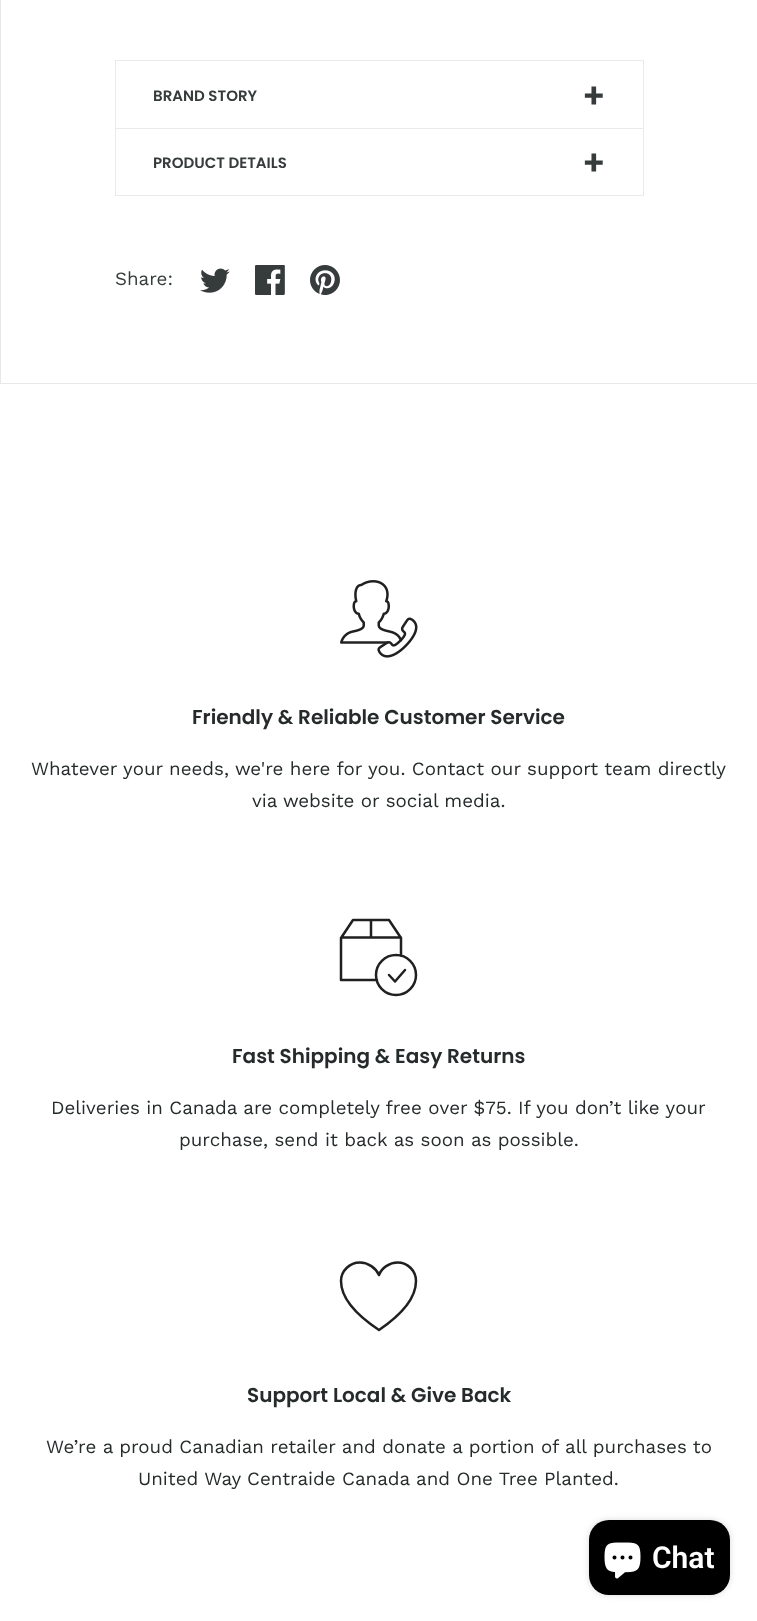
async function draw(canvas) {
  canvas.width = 757
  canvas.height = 1621
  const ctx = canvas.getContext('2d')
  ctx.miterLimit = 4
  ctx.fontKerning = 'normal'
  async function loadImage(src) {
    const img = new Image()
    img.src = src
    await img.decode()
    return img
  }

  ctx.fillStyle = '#fff'
  ctx.fillRect(0, 0, 757, 1621)
  ctx.fillStyle = '#e8e8e8'
  ctx.fillRect(0, 383, 757, 1)
  ctx.fillRect(0, 0, 1, 384)
  ctx.strokeStyle = '#eaeaea'
  ctx.strokeRect(115.5, 60.5, 528, 68)
  ctx.font = '600 15px Poppins'
  ctx.fillStyle = '#363b3c'
  ctx.fillText('BRAND STORY', 153, 101)
  ctx.font = '600 35px Poppins'
  ctx.fillText('+', 582, 108)
  ctx.strokeRect(115.5, 128.5, 528, 67)
  ctx.font = '600 15px Poppins'
  ctx.fillText('PRODUCT DETAILS', 153, 168)
  ctx.font = '600 35px Poppins'
  ctx.fillText('+', 582, 175)
  ctx.font = '18.75px Work Sans'
  ctx.fillText('Share:', 115, 285)
  ctx.drawImage(await loadImage('image0.png'), 200, 268, 30, 25)
  ctx.drawImage(await loadImage('image1.png'), 255, 265, 30, 30)
  ctx.drawImage(await loadImage('image2.png'), 310, 265, 30, 30)
  ctx.drawImage(await loadImage('image3.png'), 340, 580, 78, 78)
  ctx.font = '600 20px Poppins'
  ctx.fillStyle = '#252a2b'
  ctx.fillText('Friendly & Reliable Customer Service', 192, 724)
  ctx.font = '18.75px Work Sans'
  ctx.fillText('Whatever your needs, we\'re here for you. Contact our support team directly', 31, 775)
  ctx.fillText('via website or social media.', 252, 807)
  ctx.beginPath()
  ctx.moveTo(377, 980)
  ctx.lineTo(341, 980)
  ctx.lineTo(341, 938)
  ctx.lineTo(353, 920)
  ctx.lineTo(389, 920)
  ctx.lineTo(401, 938)
  ctx.lineTo(401, 955.5)
  ctx.moveTo(341.5, 937.5)
  ctx.lineTo(401, 937.5)
  ctx.moveTo(371, 920)
  ctx.lineTo(371, 937.5)
  ctx.strokeStyle = '#202020'
  ctx.lineWidth = 2.5
  ctx.lineCap = 'round'
  ctx.lineJoin = 'round'
  ctx.stroke()
  ctx.beginPath()
  ctx.arc(396, 975, 20, 0, 2 * Math.PI)
  ctx.stroke()
  ctx.beginPath()
  ctx.moveTo(405, 970)
  ctx.lineTo(395, 981.5)
  ctx.lineTo(389, 975)
  ctx.stroke()
  ctx.font = '600 20px Poppins'
  ctx.fillText('Fast Shipping & Easy Returns', 232, 1063)
  ctx.font = '18.75px Work Sans'
  ctx.fillText('Deliveries in Canada are completely free over $75. If you don’t like your', 51, 1114)
  ctx.fillText('purchase, send it back as soon as possible.', 179, 1146)
  ctx.beginPath()
  ctx.moveTo(397.5, 1262.5)
  ctx.bezierCurveTo(389.5, 1262.5, 381.5, 1268, 379, 1275)
  ctx.bezierCurveTo(376, 1268, 368, 1262.5, 360, 1262.5)
  ctx.bezierCurveTo(349.5, 1262.5, 341, 1271, 341, 1281)
  ctx.bezierCurveTo(341, 1297.5, 355, 1314, 379, 1330)
  ctx.bezierCurveTo(402.5, 1314, 416, 1297.5, 416, 1281)
  ctx.bezierCurveTo(416, 1271, 408, 1262.5, 397.5, 1262.5)
  ctx.closePath()
  ctx.lineCap = 'butt'
  ctx.stroke()
  ctx.font = '600 20px Poppins'
  ctx.fillText('Support Local & Give Back', 247, 1402)
  ctx.font = '18.75px Work Sans'
  ctx.fillText('We’re a proud Canadian retailer and donate a portion of all purchases to', 46, 1453)
  ctx.fillText('United Way Centraide Canada and One Tree Planted.', 138, 1485)
  ctx.fillStyle = '#00000026'
  ctx.filter = 'blur(3px)'
  ctx.beginPath()
  ctx.roundRect(589, 1520, 141, 75, 20)
  ctx.fill()
  ctx.filter = 'none'
  ctx.fillStyle = '#000'
  ctx.beginPath()
  ctx.roundRect(589, 1520, 141, 75, 20)
  ctx.fill()
  ctx.drawImage(await loadImage('image4.png'), 604, 1542, 37, 37)
  ctx.font = '600 30px Roboto'
  ctx.fillStyle = '#fff'
  ctx.fillText('Chat', 652, 1568)
}

draw(document.querySelector('canvas'))
